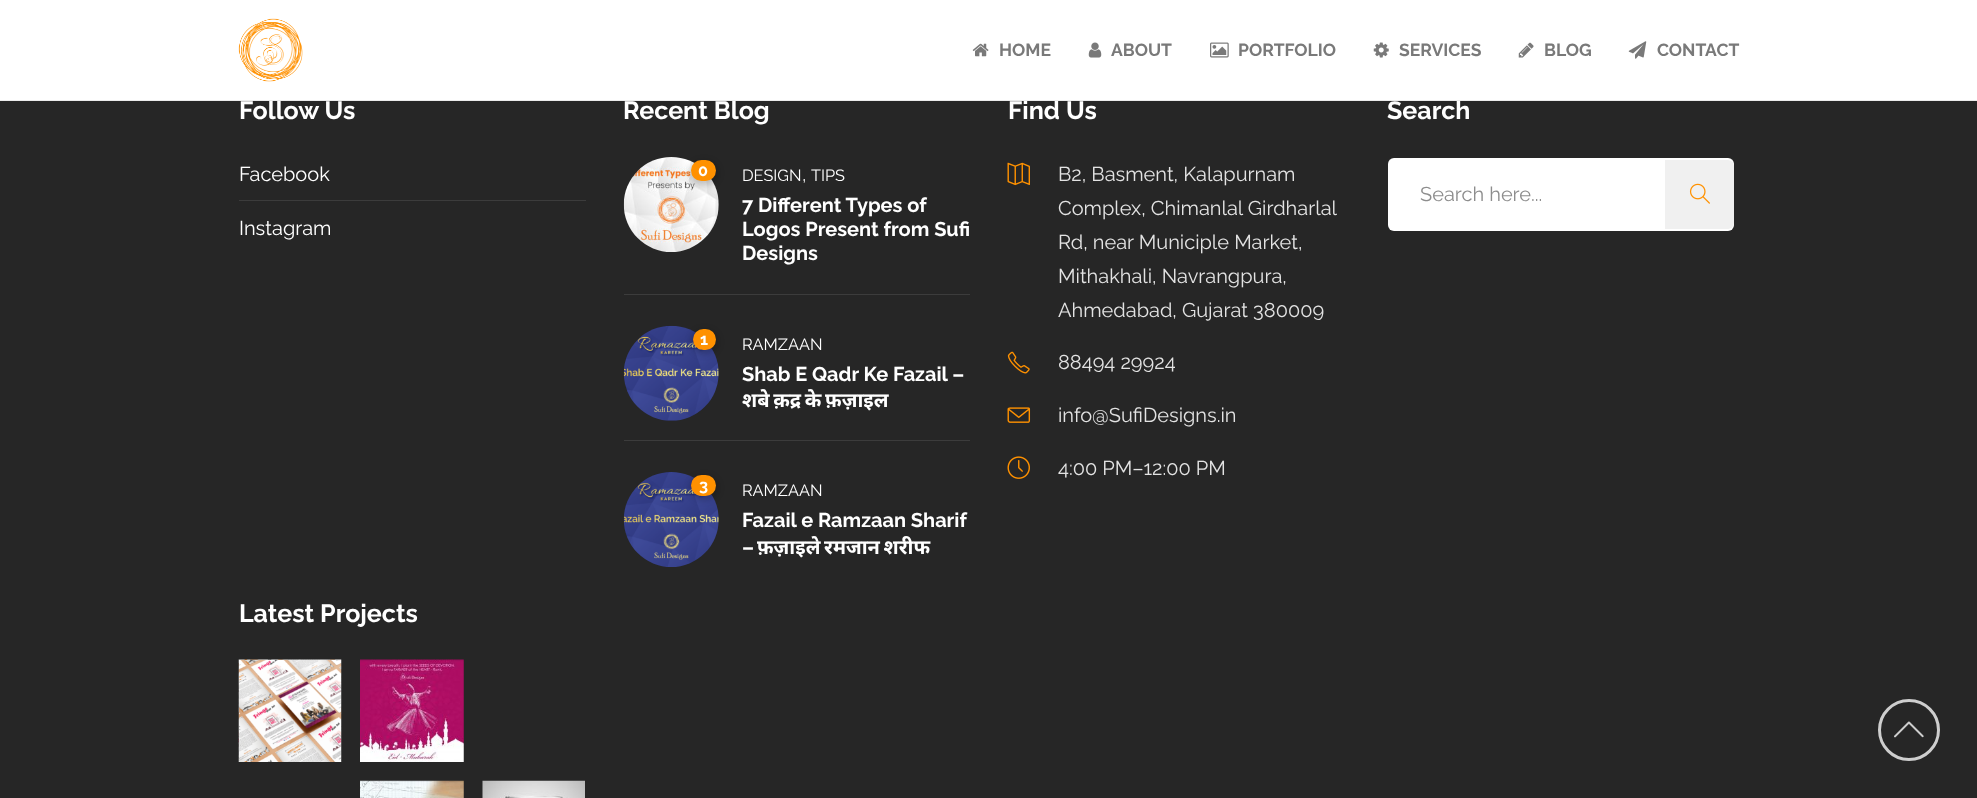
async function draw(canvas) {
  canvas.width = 1977
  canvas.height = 798
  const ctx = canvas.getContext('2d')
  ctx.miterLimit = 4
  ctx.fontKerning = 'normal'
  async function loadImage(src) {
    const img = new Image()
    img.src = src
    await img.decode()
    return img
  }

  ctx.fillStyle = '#262626'
  ctx.fillRect(0, 0, 1977, 798)
  ctx.fillStyle = '#fff'
  ctx.fillRect(0, 0, 1977, 100)
  ctx.font = 'bold 25px Raleway'
  ctx.fillText('Follow Us', 239, 119)
  ctx.fillText('Recent Blog', 623, 119)
  ctx.fillText('Find Us', 1008, 119)
  ctx.fillText('Search', 1387, 119)
  ctx.fillStyle = '#ebebeb'
  ctx.fillRect(0, 100, 1977, 1)
  ctx.drawImage(await loadImage('image0.png'), 238, 18, 65, 64)
  ctx.drawImage(await loadImage('image1.png'), 972, 43, 17, 14)
  ctx.font = 'bold 17.5px Raleway'
  ctx.fillStyle = '#797979'
  ctx.fillText('HOME', 999, 56)
  ctx.drawImage(await loadImage('image2.png'), 1088, 42, 14, 16)
  ctx.fillText('ABOUT', 1111, 56)
  ctx.drawImage(await loadImage('image3.png'), 1210, 42, 19, 16)
  ctx.fillText('PORTFOLIO', 1238, 56)
  ctx.drawImage(await loadImage('image4.png'), 1373, 42, 16, 16)
  ctx.fillText('SERVICES', 1399, 56)
  ctx.drawImage(await loadImage('image5.png'), 1518, 42, 16, 16)
  ctx.fillText('BLOG', 1544, 56)
  ctx.drawImage(await loadImage('image6.png'), 1628, 41, 19, 18)
  ctx.fillText('CONTACT', 1657, 56)
  ctx.fillStyle = '#3c3c3c'
  ctx.fillRect(239, 200, 347, 1)
  ctx.font = '20px Raleway'
  ctx.fillStyle = '#fff'
  ctx.fillText('Facebook', 239, 181)
  ctx.fillText('Instagram', 239, 235)
  ctx.fillStyle = '#3c3c3c'
  ctx.fillRect(624, 294, 346, 1)
  ctx.drawImage(await loadImage('image7.png'), 623, 157, 96, 95)
  ctx.fillStyle = '#00000033'
  ctx.filter = 'blur(3px)'
  ctx.beginPath()
  ctx.roundRect(690, 161, 28, 24, 12)
  ctx.fill()
  ctx.filter = 'none'
  ctx.fillStyle = '#ff9100'
  ctx.beginPath()
  ctx.roundRect(691, 160, 25, 21, 10.5)
  ctx.fill()
  ctx.font = 'bold 16.25px Raleway'
  ctx.fillStyle = '#fff'
  ctx.fillText('0', 698, 176)
  ctx.font = '16.25px Raleway'
  ctx.fillText('DESIGN', 742, 181)
  ctx.font = '20px Raleway'
  ctx.fillStyle = '#e3e3e3'
  ctx.fillText(',', 802, 181)
  ctx.font = '16.25px Raleway'
  ctx.fillStyle = '#fff'
  ctx.fillText('TIPS', 811, 181)
  ctx.font = 'bold 20px Raleway'
  ctx.fillText('7 Different Types of', 742, 212)
  ctx.fillText('Logos Present from Sufi', 742, 236)
  ctx.fillText('Designs', 742, 260)
  ctx.fillStyle = '#3c3c3c'
  ctx.fillRect(624, 440, 346, 1)
  ctx.drawImage(await loadImage('image8.png'), 623, 325, 96, 96)
  ctx.fillStyle = '#00000033'
  ctx.filter = 'blur(3px)'
  ctx.beginPath()
  ctx.roundRect(691, 330, 27, 24, 12)
  ctx.fill()
  ctx.filter = 'none'
  ctx.fillStyle = '#ff9100'
  ctx.beginPath()
  ctx.roundRect(693, 329, 23, 21, 10.5)
  ctx.fill()
  ctx.font = 'bold 16.25px Raleway'
  ctx.fillStyle = '#fff'
  ctx.fillText('1', 700, 345)
  ctx.font = '16.25px Raleway'
  ctx.fillText('RAMZAAN', 742, 350)
  ctx.font = 'bold 20px Raleway'
  ctx.fillText('Shab E Qadr Ke Fazail –', 742, 381)
  ctx.wordSpacing = '-1.5px'
  ctx.font = 'bold 20px Noto Sans'
  ctx.fillText('शबे क़द्र के फ़ज़ाइल', 742, 407)
  ctx.drawImage(await loadImage('image9.png'), 623, 472, 96, 95)
  ctx.fillStyle = '#00000033'
  ctx.filter = 'blur(3px)'
  ctx.beginPath()
  ctx.roundRect(690, 476, 28, 24, 12)
  ctx.fill()
  ctx.filter = 'none'
  ctx.fillStyle = '#ff9100'
  ctx.beginPath()
  ctx.roundRect(691, 475, 25, 21, 10.5)
  ctx.fill()
  ctx.wordSpacing = '0px'
  ctx.font = 'bold 16.25px Raleway'
  ctx.fillStyle = '#fff'
  ctx.fillText('3', 699, 491)
  ctx.font = '16.25px Raleway'
  ctx.fillText('RAMZAAN', 742, 496)
  ctx.font = 'bold 20px Raleway'
  ctx.fillText('Fazail e Ramzaan Sharif', 742, 527)
  ctx.fillText('–', 742, 554)
  ctx.wordSpacing = '-1.5px'
  ctx.font = 'bold 20px Noto Sans'
  ctx.fillText('फ़ज़ाइले रमजान शरीफ', 757, 554)
  ctx.drawImage(await loadImage('image10.png'), 1007, 162, 23, 24)
  ctx.wordSpacing = '0px'
  ctx.font = '20px Raleway'
  ctx.fillStyle = '#e3e3e3'
  ctx.fillText('B2, Basment, Kalapurnam', 1058, 181)
  ctx.fillText('Complex, Chimanlal Girdharlal', 1058, 215)
  ctx.fillText('Rd, near Municiple Market,', 1058, 249)
  ctx.fillText('Mithakhali, Navrangpura,', 1058, 283)
  ctx.fillText('Ahmedabad, Gujarat 380009', 1058, 317)
  ctx.drawImage(await loadImage('image11.png'), 1007, 351, 23, 23)
  ctx.fillText('88494 29924', 1058, 369)
  ctx.drawImage(await loadImage('image12.png'), 1007, 407, 24, 16)
  ctx.fillText('info@SufiDesigns.in', 1058, 422)
  ctx.drawImage(await loadImage('image13.png'), 1007, 456, 23, 23)
  ctx.fillText('4:00 PM–12:00 PM', 1058, 475)
  ctx.fillStyle = '#fff'
  ctx.beginPath()
  ctx.roundRect(1388, 158, 346, 73, 6)
  ctx.fill()
  ctx.fillStyle = '#8d8d8d'
  ctx.fillText('Search here...', 1420, 201)
  ctx.fillStyle = '#f0f0f0'
  ctx.beginPath()
  ctx.roundRect(1665, 160, 69, 69, [0, 6, 6, 0])
  ctx.fill()
  ctx.drawImage(await loadImage('image14.png'), 1689, 183, 21, 21)
  ctx.font = 'bold 25px Raleway'
  ctx.fillStyle = '#fff'
  ctx.fillText('Latest Projects', 239, 622)
  ctx.drawImage(await loadImage('image15.png'), 238, 659, 104, 103)
  ctx.drawImage(await loadImage('image16.png'), 360, 659, 104, 103)
  ctx.drawImage(await loadImage('image17.png'), 360, 780, 104, 18)
  ctx.drawImage(await loadImage('image18.png'), 482, 780, 103, 18)
  ctx.beginPath()
  ctx.arc(1909, 730, 29.5, 0, 2 * Math.PI)
  ctx.strokeStyle = '#cecece'
  ctx.lineWidth = 3
  ctx.stroke()
  ctx.drawImage(await loadImage('image19.png'), 1894, 721, 30, 17)
}

draw(document.querySelector('canvas'))
